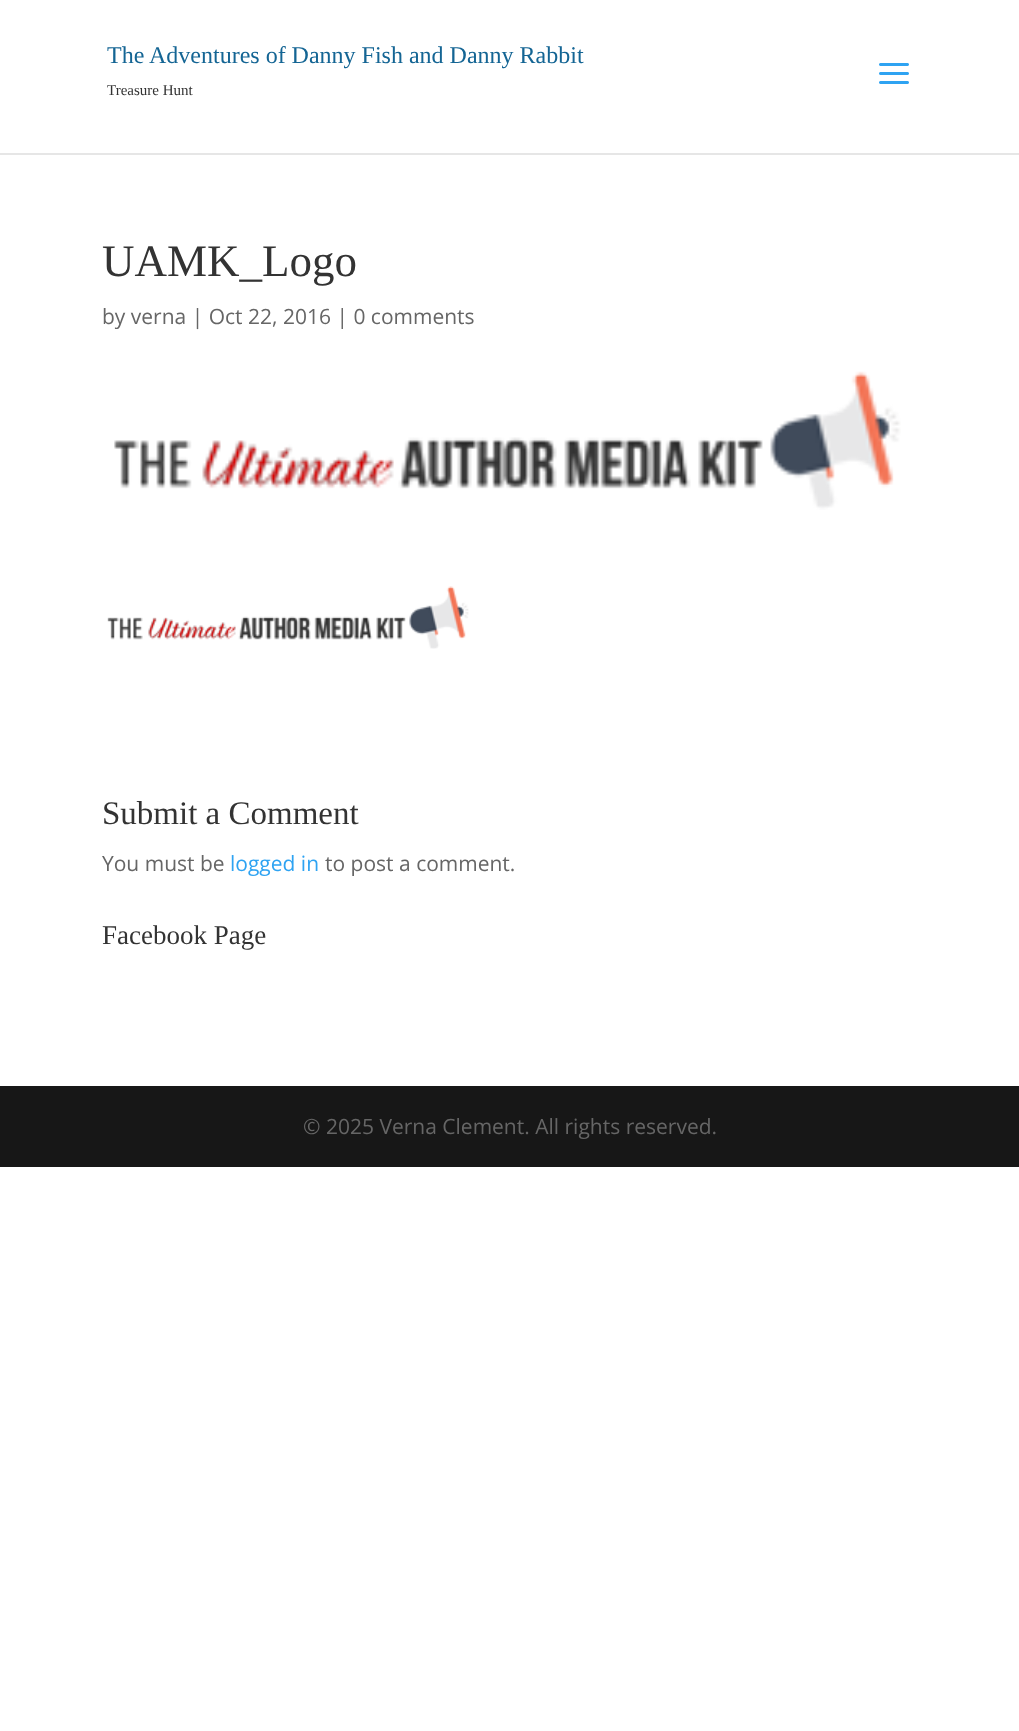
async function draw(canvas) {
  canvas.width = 1019
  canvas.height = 1731
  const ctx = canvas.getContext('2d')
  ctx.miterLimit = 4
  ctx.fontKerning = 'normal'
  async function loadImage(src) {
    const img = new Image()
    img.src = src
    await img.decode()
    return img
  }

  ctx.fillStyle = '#fff'
  ctx.fillRect(0, 0, 1019, 1731)
  ctx.fillStyle = '#e6e6e6'
  ctx.fillRect(0, 153, 1019, 2)
  ctx.font = '24px Liberation Serif'
  ctx.fillStyle = '#146594'
  ctx.fillText('The Adventures of Danny Fish and Danny Rabbit', 107, 63)
  ctx.font = '15px Liberation Serif'
  ctx.fillStyle = '#333'
  ctx.fillText('Treasure Hunt', 107, 95)
  ctx.drawImage(await loadImage('image0.png'), 879, 63, 30, 21)
  ctx.font = '45px Liberation Serif'
  ctx.fillText('UAMK_Logo', 102, 276)
  ctx.font = '21px Open Sans'
  ctx.fillStyle = '#666'
  ctx.fillText('by verna | Oct 22, 2016 | 0 comments', 102, 324)
  ctx.drawImage(await loadImage('image1.png'), 114, 371, 787, 139)
  ctx.drawImage(await loadImage('image2.png'), 107, 586, 362, 63)
  ctx.font = '33px Liberation Serif'
  ctx.fillStyle = '#333'
  ctx.fillText('Submit a Comment', 102, 824)
  ctx.font = '21px Open Sans'
  ctx.fillStyle = '#666'
  ctx.fillText('You must be', 102, 871)
  ctx.fillStyle = '#2ea3f2'
  ctx.fillText('logged in', 230, 871)
  ctx.fillStyle = '#666'
  ctx.fillText('to post a comment.', 325, 871)
  ctx.font = '27px Liberation Serif'
  ctx.fillStyle = '#333'
  ctx.fillText('Facebook Page', 102, 944)
  ctx.fillStyle = '#171717'
  ctx.fillRect(0, 1086, 1019, 81)
  ctx.font = '21px Open Sans'
  ctx.fillStyle = '#666'
  ctx.fillText('© 2025 Verna Clement. All rights reserved.', 303, 1134)
}

draw(document.querySelector('canvas'))
